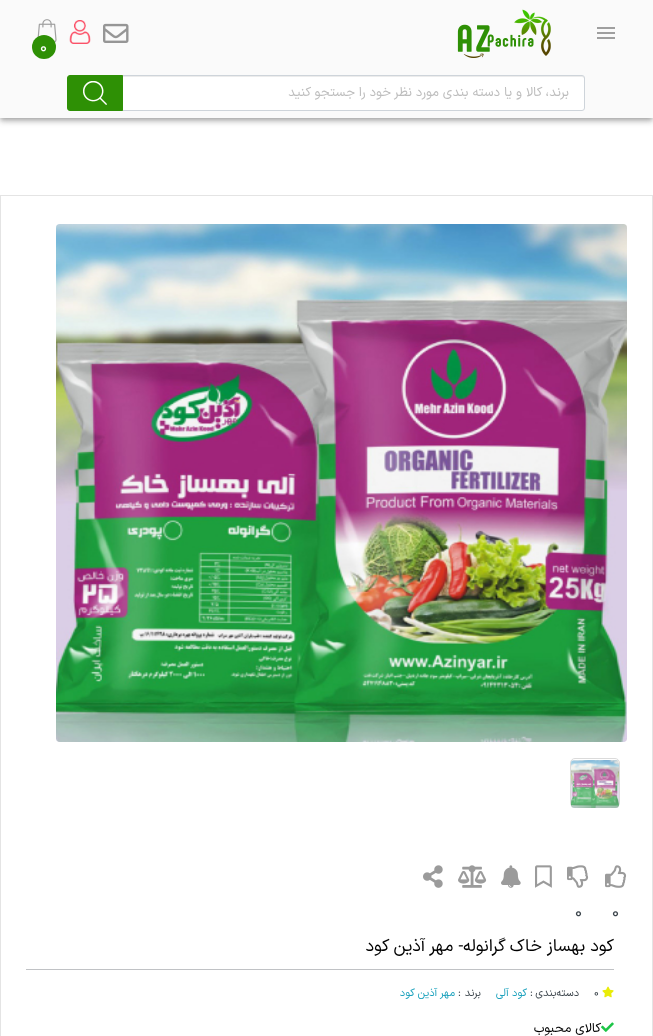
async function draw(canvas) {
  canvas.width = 653
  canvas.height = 1036
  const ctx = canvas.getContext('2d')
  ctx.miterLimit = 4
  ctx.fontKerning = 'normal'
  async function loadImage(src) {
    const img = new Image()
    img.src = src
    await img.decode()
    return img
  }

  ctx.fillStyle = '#fff'
  ctx.fillRect(0, 0, 653, 1036)
  ctx.fillStyle = '#00000033'
  ctx.filter = 'blur(2px)'
  ctx.beginPath()
  ctx.rect(1, 3, 651, 116)
  ctx.fill()
  ctx.filter = 'none'
  ctx.fillStyle = '#0000001f'
  ctx.filter = 'blur(5px)'
  ctx.beginPath()
  ctx.rect(0, 1, 653, 118)
  ctx.fill()
  ctx.filter = 'none'
  ctx.fillStyle = '#00000024'
  ctx.filter = 'blur(2.5px)'
  ctx.beginPath()
  ctx.rect(0, 4, 653, 118)
  ctx.fill()
  ctx.filter = 'none'
  ctx.fillStyle = '#fafafa'
  ctx.fillRect(0, 0, 653, 118)
  ctx.drawImage(await loadImage('image0.png'), 597, 27, 18, 12)
  ctx.drawImage(await loadImage('image1.png'), 457, 9, 94, 49)
  ctx.drawImage(await loadImage('image2.png'), 103, 23, 26, 20)
  ctx.drawImage(await loadImage('image3.png'), 69, 20, 22, 24)
  ctx.drawImage(await loadImage('image4.png'), 37, 19, 20, 24)
  ctx.fillStyle = '#2e9005'
  ctx.beginPath()
  ctx.arc(44, 47, 12, 0, 2 * Math.PI)
  ctx.fill()
  ctx.font = '16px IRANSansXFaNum'
  ctx.fillStyle = '#fff'
  ctx.fillText('0', 40, 52)
  ctx.beginPath()
  ctx.roundRect(123, 76, 461, 34, [0, 2, 2, 0])
  ctx.fill()
  ctx.fillStyle = '#ececec'
  ctx.beginPath()
  ctx.moveTo(123, 77)
  ctx.lineTo(582, 77)
  ctx.bezierCurveTo(583, 77, 584, 78, 584, 79)
  ctx.bezierCurveTo(584, 78, 584, 76, 582, 76)
  ctx.lineTo(123, 76)
  ctx.closePath()
  ctx.fill()
  ctx.beginPath()
  ctx.roundRect(122.5, 75.5, 462, 35, [0, 2.5, 2.5, 0])
  ctx.strokeStyle = '#ced4da'
  ctx.stroke()
  ctx.direction = 'rtl'
  ctx.font = '13.1px IRANSansXFaNum'
  ctx.fillStyle = '#bdbdbd'
  ctx.fillText('برند، کالا و یا دسته بندی مورد نظر خود را جستجو کنید', 569, 96)
  ctx.fillStyle = '#2e9005'
  ctx.beginPath()
  ctx.roundRect(67.5, 75.5, 55, 35, [2.5, 0, 0, 2.5])
  ctx.fill()
  ctx.strokeStyle = '#2e9005'
  ctx.stroke()
  ctx.drawImage(await loadImage('image5.png'), 83, 81, 24, 24)
  ctx.strokeStyle = '#e4e4e4'
  ctx.strokeRect(0.5, 195.5, 652, 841)
  ctx.drawImage(await loadImage('image6.png'), 56, 224, 571, 518)
  ctx.beginPath()
  ctx.roundRect(570.5, 758.5, 49, 49, 4.5)
  ctx.strokeStyle = '#dbdbdb'
  ctx.stroke()
  ctx.drawImage(await loadImage('image7.png'), 571, 760, 48, 48)
  ctx.drawImage(await loadImage('image8.png'), 535, 865, 17, 23)
  ctx.drawImage(await loadImage('image9.png'), 501, 865, 20, 23)
  ctx.drawImage(await loadImage('image10.png'), 458, 865, 29, 23)
  ctx.drawImage(await loadImage('image11.png'), 423, 865, 20, 23)
  ctx.drawImage(await loadImage('image12.png'), 605, 865, 22, 23)
  ctx.direction = 'ltr'
  ctx.font = '16px IRANSansXFaNum'
  ctx.fillStyle = '#3d464d'
  ctx.fillText('0', 612, 917)
  ctx.drawImage(await loadImage('image13.png'), 567, 865, 22, 23)
  ctx.fillText('0', 575, 917)
  ctx.direction = 'rtl'
  ctx.font = '17.1px IRANSansXFaNum'
  ctx.fillStyle = '#000'
  ctx.fillText('کود بهساز خاک گرانوله- مهر آذین کود', 614, 951)
  ctx.fillStyle = '#c0c2c5'
  ctx.fillRect(26, 969, 588, 1)
  ctx.drawImage(await loadImage('image14.png'), 602, 986, 12, 12)
  ctx.direction = 'ltr'
  ctx.font = '10.75px IRANSansXFaNum'
  ctx.fillStyle = '#3d464d'
  ctx.fillText('0', 594, 996)
  ctx.direction = 'rtl'
  ctx.fillText('دسته‌بندی', 579, 996)
  ctx.direction = 'ltr'
  ctx.fillText(':', 530, 996)
  ctx.direction = 'rtl'
  ctx.fillStyle = '#1ca2bd'
  ctx.fillText('کود آلی', 527, 996)
  ctx.fillStyle = '#3d464d'
  ctx.fillText('برند', 481, 996)
  ctx.direction = 'ltr'
  ctx.fillText(':', 458, 996)
  ctx.direction = 'rtl'
  ctx.fillStyle = '#1ca2bd'
  ctx.fillText('مهر آذین کود', 455, 996)
  ctx.drawImage(await loadImage('image15.png'), 601, 1022, 13, 10)
  ctx.font = '13px IRANSansXFaNum'
  ctx.fillStyle = '#000'
  ctx.fillText('کالای محبوب', 601, 1032)
}

draw(document.querySelector('canvas'))
